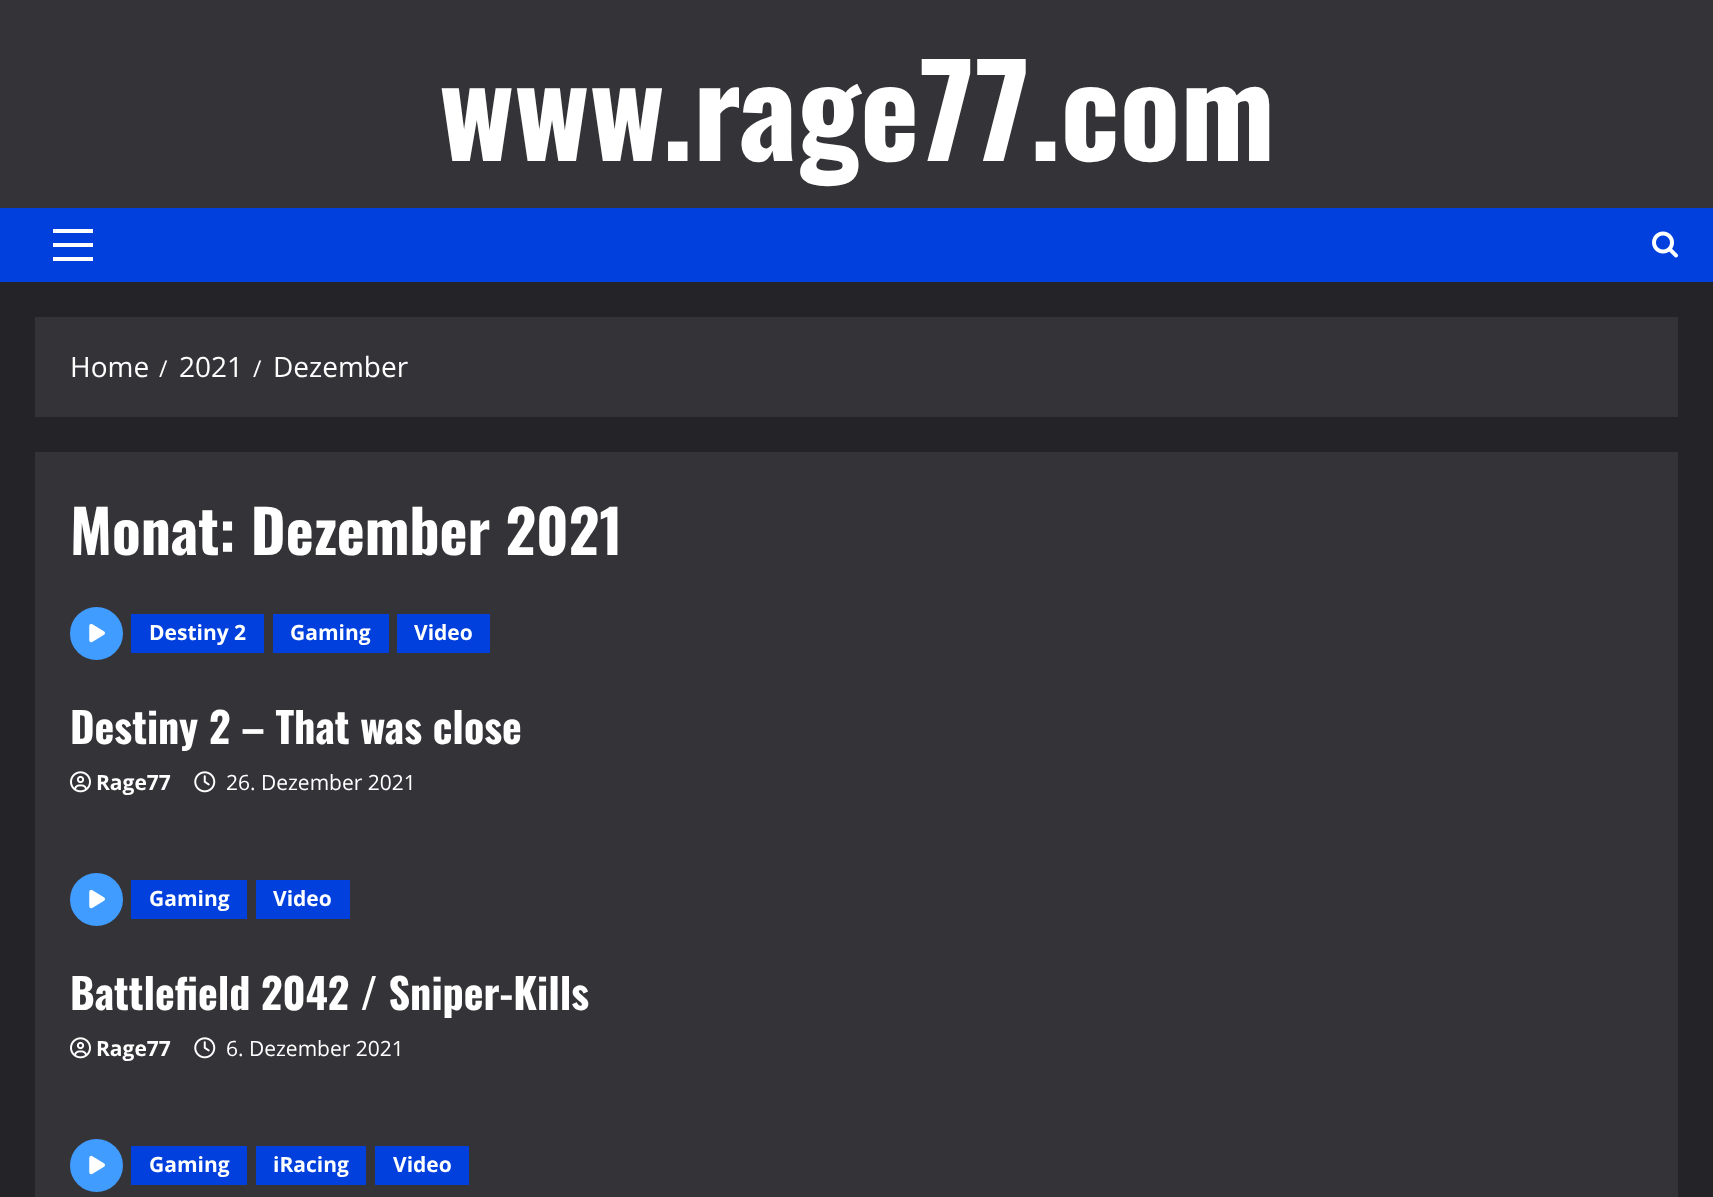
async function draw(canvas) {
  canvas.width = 1713
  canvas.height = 1197
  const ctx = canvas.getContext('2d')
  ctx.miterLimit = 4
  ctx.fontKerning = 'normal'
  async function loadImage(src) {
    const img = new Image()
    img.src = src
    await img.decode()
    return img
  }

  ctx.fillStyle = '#242428'
  ctx.fillRect(0, 0, 1713, 1197)
  ctx.fillStyle = '#343438'
  ctx.fillRect(0, 0, 1713, 208)
  ctx.font = 'bold 126px Oswald'
  ctx.fillStyle = '#fff'
  ctx.fillText('www.rage77.com', 439, 161)
  ctx.fillStyle = '#0140dd'
  ctx.fillRect(0, 208, 1713, 74)
  ctx.fillStyle = '#fff'
  ctx.fillRect(53, 243, 40, 4)
  ctx.fillRect(53, 229, 40, 4)
  ctx.fillRect(53, 257, 40, 4)
  ctx.drawImage(await loadImage('image0.png'), 1652, 231, 26, 27)
  ctx.fillStyle = '#343438'
  ctx.fillRect(35, 317, 1643, 100)
  ctx.font = '28px Open Sans'
  ctx.fillStyle = '#fff'
  ctx.fillText('Home', 70, 377)
  ctx.font = '23px Open Sans'
  ctx.fillText('/', 159, 377)
  ctx.font = '28px Open Sans'
  ctx.fillText('2021', 179, 377)
  ctx.font = '23px Open Sans'
  ctx.fillText('/', 253, 377)
  ctx.font = '28px Open Sans'
  ctx.fillText('Dezember', 273, 377)
  ctx.fillStyle = '#343438'
  ctx.fillRect(35, 452, 1643, 745)
  ctx.font = 'bold 59.5px Oswald'
  ctx.fillStyle = '#fff'
  ctx.fillText('Monat: Dezember 2021', 70, 555)
  ctx.fillStyle = '#419cff'
  ctx.beginPath()
  ctx.arc(96.5, 633.5, 26.5, 0, 2 * Math.PI)
  ctx.fill()
  ctx.drawImage(await loadImage('image1.png'), 89, 623, 16, 20)
  ctx.fillStyle = '#0140dd'
  ctx.fillRect(131, 614, 133, 39)
  ctx.font = 'bold 21px Open Sans'
  ctx.fillStyle = '#fff'
  ctx.fillText('Destiny 2', 149, 640)
  ctx.fillStyle = '#0140dd'
  ctx.fillRect(273, 614, 116, 39)
  ctx.fillStyle = '#fff'
  ctx.fillText('Gaming', 290, 640)
  ctx.fillStyle = '#0140dd'
  ctx.fillRect(397, 614, 93, 39)
  ctx.fillStyle = '#fff'
  ctx.fillText('Video', 414, 640)
  ctx.font = 'bold 42px Oswald'
  ctx.fillText('Destiny 2 – That was close', 70, 744)
  ctx.drawImage(await loadImage('image2.png'), 70, 771, 21, 22)
  ctx.font = 'bold 21px Open Sans'
  ctx.fillText('Rage77', 96, 790)
  ctx.drawImage(await loadImage('image3.png'), 194, 771, 22, 22)
  ctx.font = '21px Open Sans'
  ctx.fillText('26. Dezember 2021', 226, 790)
  ctx.fillStyle = '#419cff'
  ctx.beginPath()
  ctx.arc(96.5, 899.5, 26.5, 0, 2 * Math.PI)
  ctx.fill()
  ctx.drawImage(await loadImage('image1.png'), 89, 889, 16, 20)
  ctx.fillStyle = '#0140dd'
  ctx.fillRect(131, 880, 116, 39)
  ctx.font = 'bold 21px Open Sans'
  ctx.fillStyle = '#fff'
  ctx.fillText('Gaming', 149, 906)
  ctx.fillStyle = '#0140dd'
  ctx.fillRect(256, 880, 94, 39)
  ctx.fillStyle = '#fff'
  ctx.fillText('Video', 273, 906)
  ctx.font = 'bold 42px Oswald'
  ctx.fillText('Battlefield 2042 / Sniper-Kills', 70, 1010)
  ctx.drawImage(await loadImage('image2.png'), 70, 1037, 21, 22)
  ctx.font = 'bold 21px Open Sans'
  ctx.fillText('Rage77', 96, 1056)
  ctx.drawImage(await loadImage('image3.png'), 194, 1037, 22, 22)
  ctx.font = '21px Open Sans'
  ctx.fillText('6. Dezember 2021', 226, 1056)
  ctx.fillStyle = '#419cff'
  ctx.beginPath()
  ctx.arc(96.5, 1165.5, 26.5, 0, 2 * Math.PI)
  ctx.fill()
  ctx.drawImage(await loadImage('image1.png'), 89, 1155, 16, 20)
  ctx.fillStyle = '#0140dd'
  ctx.fillRect(131, 1146, 116, 39)
  ctx.font = 'bold 21px Open Sans'
  ctx.fillStyle = '#fff'
  ctx.fillText('Gaming', 149, 1172)
  ctx.fillStyle = '#0140dd'
  ctx.fillRect(256, 1146, 110, 39)
  ctx.fillStyle = '#fff'
  ctx.fillText('iRacing', 273, 1172)
  ctx.fillStyle = '#0140dd'
  ctx.fillRect(375, 1146, 94, 39)
  ctx.fillStyle = '#fff'
  ctx.fillText('Video', 393, 1172)
}

draw(document.querySelector('canvas'))
